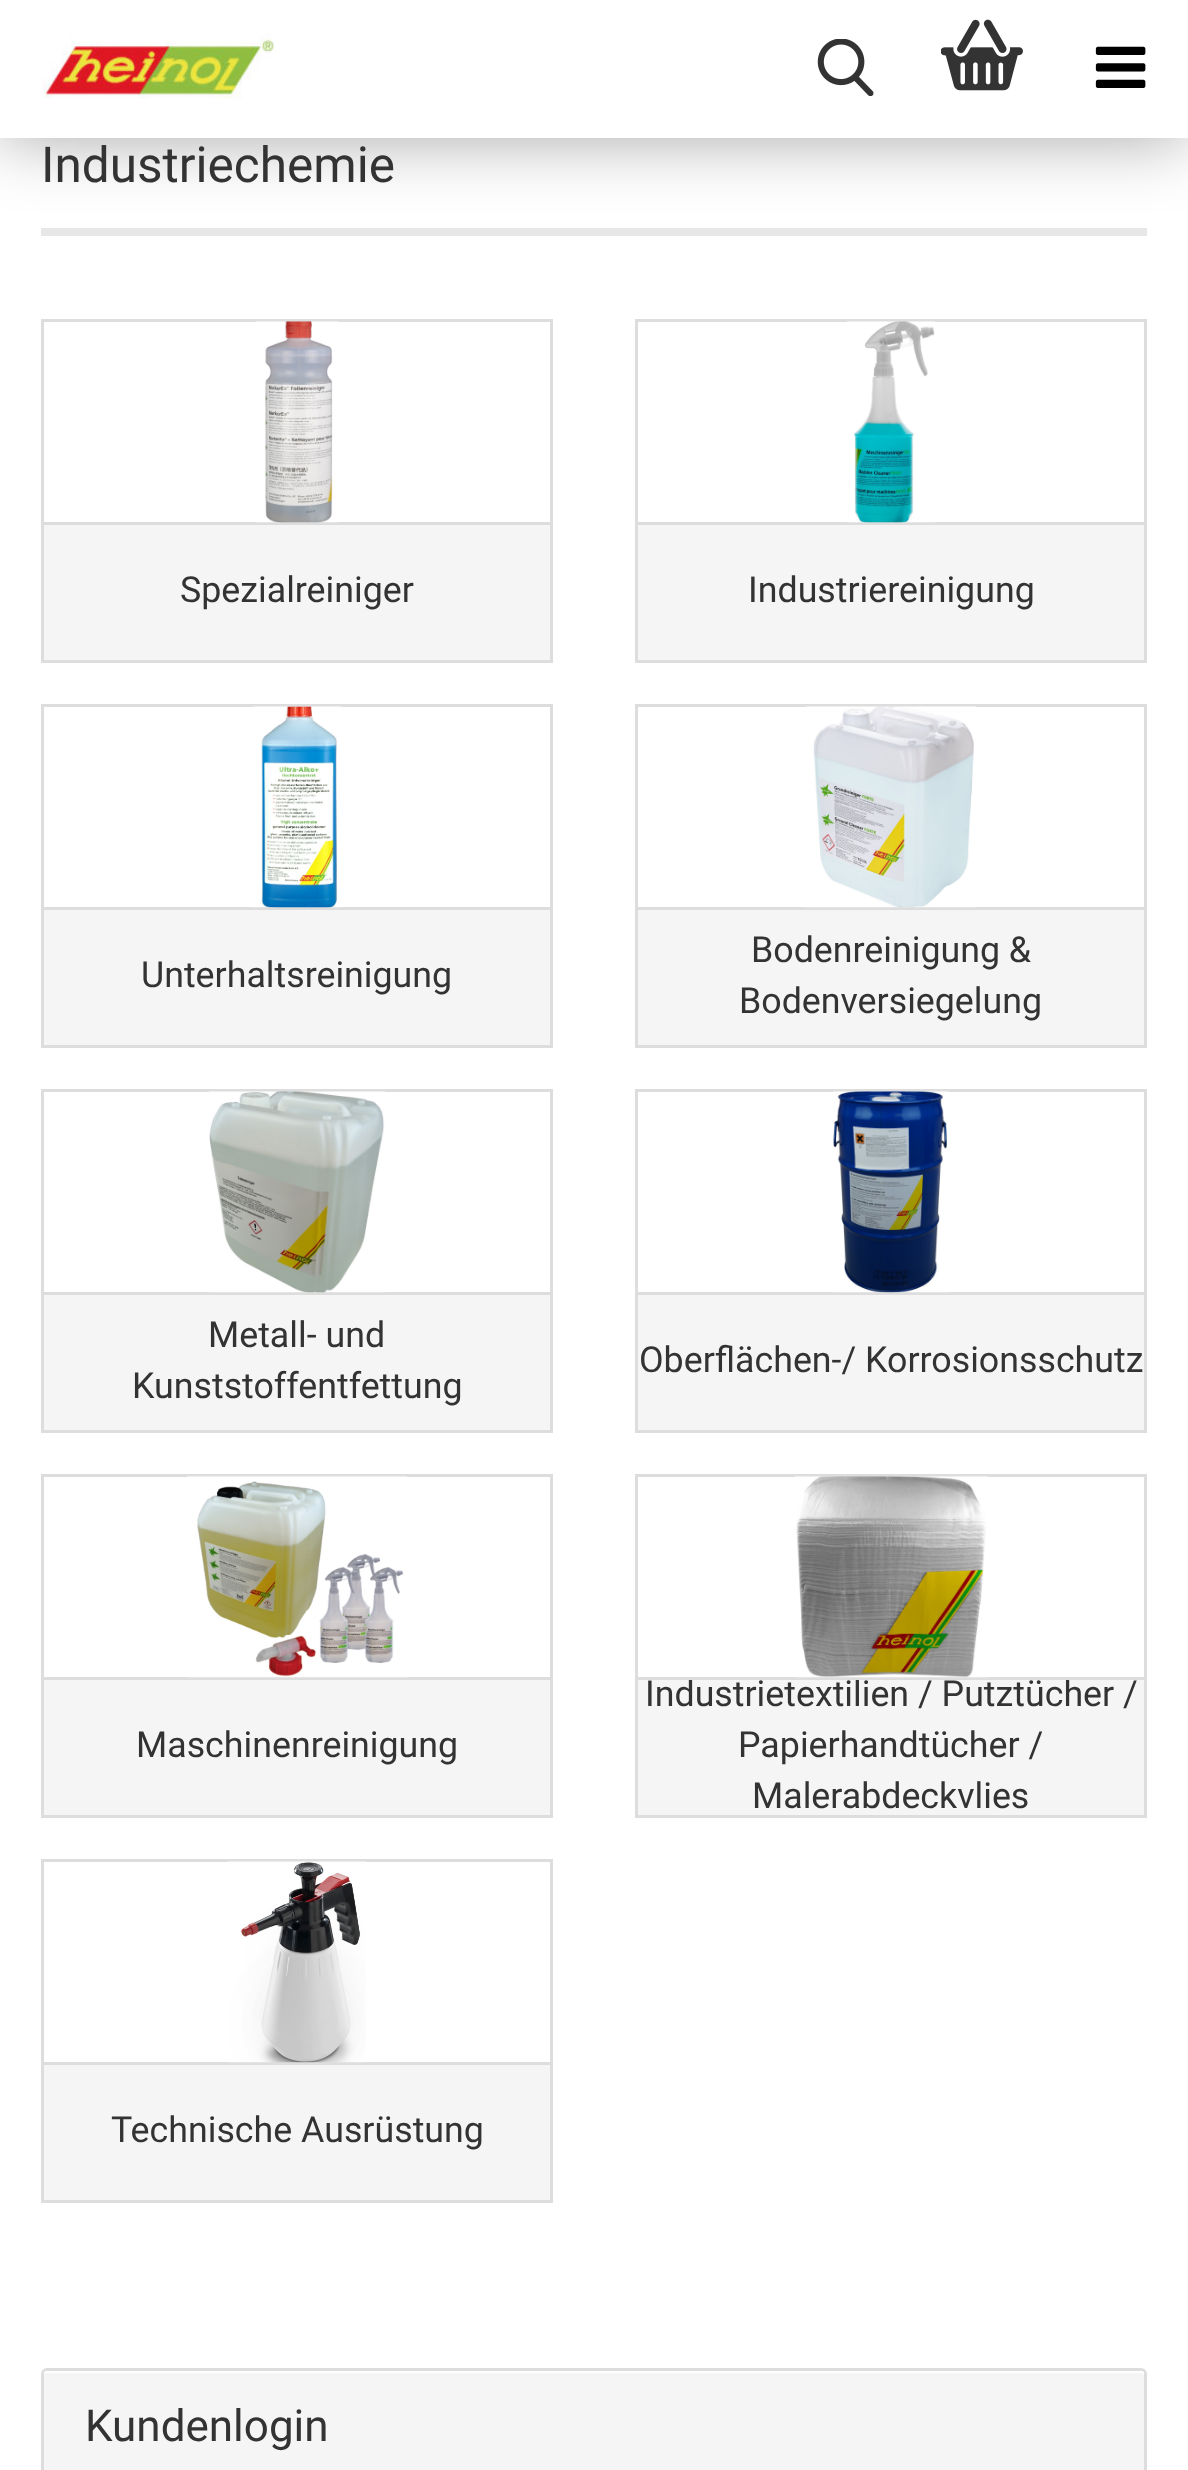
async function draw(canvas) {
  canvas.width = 1188
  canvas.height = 2470
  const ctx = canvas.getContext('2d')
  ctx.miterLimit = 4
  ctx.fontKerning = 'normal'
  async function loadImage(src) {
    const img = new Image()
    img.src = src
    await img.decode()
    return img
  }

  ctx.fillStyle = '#fff'
  ctx.fillRect(0, 0, 1188, 2470)
  ctx.fillStyle = '#e7e7e7'
  ctx.fillRect(41, 228, 1106, 8)
  ctx.fillStyle = '#00000059'
  ctx.filter = 'blur(34.5px)'
  ctx.beginPath()
  ctx.rect(0, 0, 1188, 138)
  ctx.fill()
  ctx.filter = 'none'
  ctx.fillStyle = '#fff'
  ctx.fillRect(0, 0, 1188, 138)
  ctx.drawImage(await loadImage('image0.png'), 42, 34, 233, 65)
  ctx.drawImage(await loadImage('image1.png'), 817, 39, 57, 57)
  ctx.drawImage(await loadImage('image2.png'), 941, 19, 82, 72)
  ctx.drawImage(await loadImage('image3.png'), 1095, 46, 51, 42)
  ctx.font = '49.5px Roboto'
  ctx.fillStyle = '#333'
  ctx.fillText('Industriechemie', 41, 182)
  ctx.strokeStyle = '#ddd'
  ctx.lineWidth = 3
  ctx.strokeRect(42.5, 320.5, 509, 203)
  ctx.drawImage(await loadImage('image4.png'), 255, 321, 84, 202)
  ctx.fillStyle = '#f5f5f5'
  ctx.fillRect(44, 525, 506, 135)
  ctx.fillStyle = '#ddd'
  ctx.fillRect(550, 525, 3, 138)
  ctx.fillRect(41, 660, 512, 3)
  ctx.fillRect(41, 525, 3, 138)
  ctx.font = '35.75px Roboto'
  ctx.fillStyle = '#333'
  ctx.fillText('Spezialreiniger', 180, 602)
  ctx.strokeRect(636.5, 320.5, 509, 203)
  ctx.drawImage(await loadImage('image5.png'), 847, 321, 88, 202)
  ctx.fillStyle = '#f5f5f5'
  ctx.fillRect(638, 525, 506, 135)
  ctx.fillStyle = '#ddd'
  ctx.fillRect(1144, 525, 3, 138)
  ctx.fillRect(635, 660, 512, 3)
  ctx.fillRect(635, 525, 3, 138)
  ctx.fillStyle = '#333'
  ctx.fillText('Industriereinigung', 748, 602)
  ctx.strokeRect(42.5, 705.5, 509, 203)
  ctx.drawImage(await loadImage('image6.png'), 253, 706, 88, 202)
  ctx.fillStyle = '#f5f5f5'
  ctx.fillRect(44, 910, 506, 135)
  ctx.fillStyle = '#ddd'
  ctx.fillRect(550, 910, 3, 138)
  ctx.fillRect(41, 1045, 512, 3)
  ctx.fillRect(41, 910, 3, 138)
  ctx.fillStyle = '#333'
  ctx.fillText('Unterhaltsreinigung', 141, 987)
  ctx.strokeRect(636.5, 705.5, 509, 203)
  ctx.drawImage(await loadImage('image7.png'), 805, 706, 172, 202)
  ctx.fillStyle = '#f5f5f5'
  ctx.fillRect(638, 910, 506, 135)
  ctx.fillStyle = '#ddd'
  ctx.fillRect(1144, 910, 3, 138)
  ctx.fillRect(635, 1045, 512, 3)
  ctx.fillRect(635, 910, 3, 138)
  ctx.fillStyle = '#333'
  ctx.fillText('Bodenreinigung &', 751, 962)
  ctx.fillText('Bodenversiegelung', 739, 1013)
  ctx.strokeRect(42.5, 1090.5, 509, 203)
  ctx.drawImage(await loadImage('image8.png'), 209, 1091, 176, 202)
  ctx.fillStyle = '#f5f5f5'
  ctx.fillRect(44, 1295, 506, 135)
  ctx.fillStyle = '#ddd'
  ctx.fillRect(550, 1295, 3, 138)
  ctx.fillRect(41, 1430, 512, 3)
  ctx.fillRect(41, 1295, 3, 138)
  ctx.fillStyle = '#333'
  ctx.fillText('Metall- und', 208, 1347)
  ctx.fillText('Kunststoffentfettung', 132, 1398)
  ctx.strokeRect(636.5, 1090.5, 509, 203)
  ctx.drawImage(await loadImage('image9.png'), 833, 1091, 116, 202)
  ctx.fillStyle = '#f5f5f5'
  ctx.fillRect(638, 1295, 506, 135)
  ctx.fillStyle = '#ddd'
  ctx.fillRect(1144, 1295, 3, 138)
  ctx.fillRect(635, 1430, 512, 3)
  ctx.fillRect(635, 1295, 3, 138)
  ctx.fillStyle = '#333'
  ctx.fillText('Oberflächen-/ Korrosionsschutz', 639, 1372)
  ctx.strokeRect(42.5, 1475.5, 509, 203)
  ctx.drawImage(await loadImage('image10.png'), 187, 1476, 220, 202)
  ctx.fillStyle = '#f5f5f5'
  ctx.fillRect(44, 1680, 506, 135)
  ctx.fillStyle = '#ddd'
  ctx.fillRect(550, 1680, 3, 138)
  ctx.fillRect(41, 1815, 512, 3)
  ctx.fillRect(41, 1680, 3, 138)
  ctx.fillStyle = '#333'
  ctx.fillText('Maschinenreinigung', 136, 1757)
  ctx.fillStyle = '#f5f5f5'
  ctx.fillRect(638, 1680, 506, 135)
  ctx.fillStyle = '#333'
  ctx.fillText('Industrietextilien / Putztücher /', 645, 1706)
  ctx.strokeRect(636.5, 1475.5, 509, 203)
  ctx.drawImage(await loadImage('image11.png'), 794, 1476, 194, 202)
  ctx.fillStyle = '#ddd'
  ctx.fillRect(1144, 1680, 3, 138)
  ctx.fillRect(635, 1815, 512, 3)
  ctx.fillRect(635, 1680, 3, 138)
  ctx.fillStyle = '#333'
  ctx.fillText('Papierhandtücher /', 738, 1757)
  ctx.fillText('Malerabdeckvlies', 752, 1808)
  ctx.strokeRect(42.5, 1860.5, 509, 203)
  ctx.drawImage(await loadImage('image12.png'), 228, 1861, 138, 202)
  ctx.fillStyle = '#f5f5f5'
  ctx.fillRect(44, 2065, 506, 135)
  ctx.fillStyle = '#ddd'
  ctx.fillRect(550, 2065, 3, 138)
  ctx.fillRect(41, 2200, 512, 3)
  ctx.fillRect(41, 2065, 3, 138)
  ctx.fillStyle = '#333'
  ctx.fillText('Technische Ausrüstung', 111, 2142)
  ctx.beginPath()
  ctx.roundRect(42.5, 2369.5, 1103, 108, 4.5)
  ctx.stroke()
  ctx.fillStyle = '#f5f5f5'
  ctx.beginPath()
  ctx.moveTo(47, 2371)
  ctx.lineTo(1141, 2371)
  ctx.bezierCurveTo(1142.5, 2371, 1144, 2372.5, 1144, 2374)
  ctx.lineTo(1144, 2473)
  ctx.lineTo(44, 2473)
  ctx.lineTo(44, 2374)
  ctx.bezierCurveTo(44, 2372.5, 45.5, 2371, 47, 2371)
  ctx.closePath()
  ctx.fill()
  ctx.fillStyle = '#fff'
  ctx.beginPath()
  ctx.moveTo(47, 2373)
  ctx.lineTo(1141, 2373)
  ctx.bezierCurveTo(1143, 2373, 1144, 2374, 1144, 2376)
  ctx.lineTo(1144, 2374)
  ctx.bezierCurveTo(1144, 2372, 1143, 2371, 1141, 2371)
  ctx.lineTo(47, 2371)
  ctx.bezierCurveTo(45, 2371, 44, 2372, 44, 2374)
  ctx.lineTo(44, 2376)
  ctx.bezierCurveTo(44, 2374, 45, 2373, 47, 2373)
  ctx.closePath()
  ctx.fill()
  ctx.font = '44px Roboto'
  ctx.fillStyle = '#333'
  ctx.fillText('Kundenlogin', 85, 2441)
}

draw(document.querySelector('canvas'))
